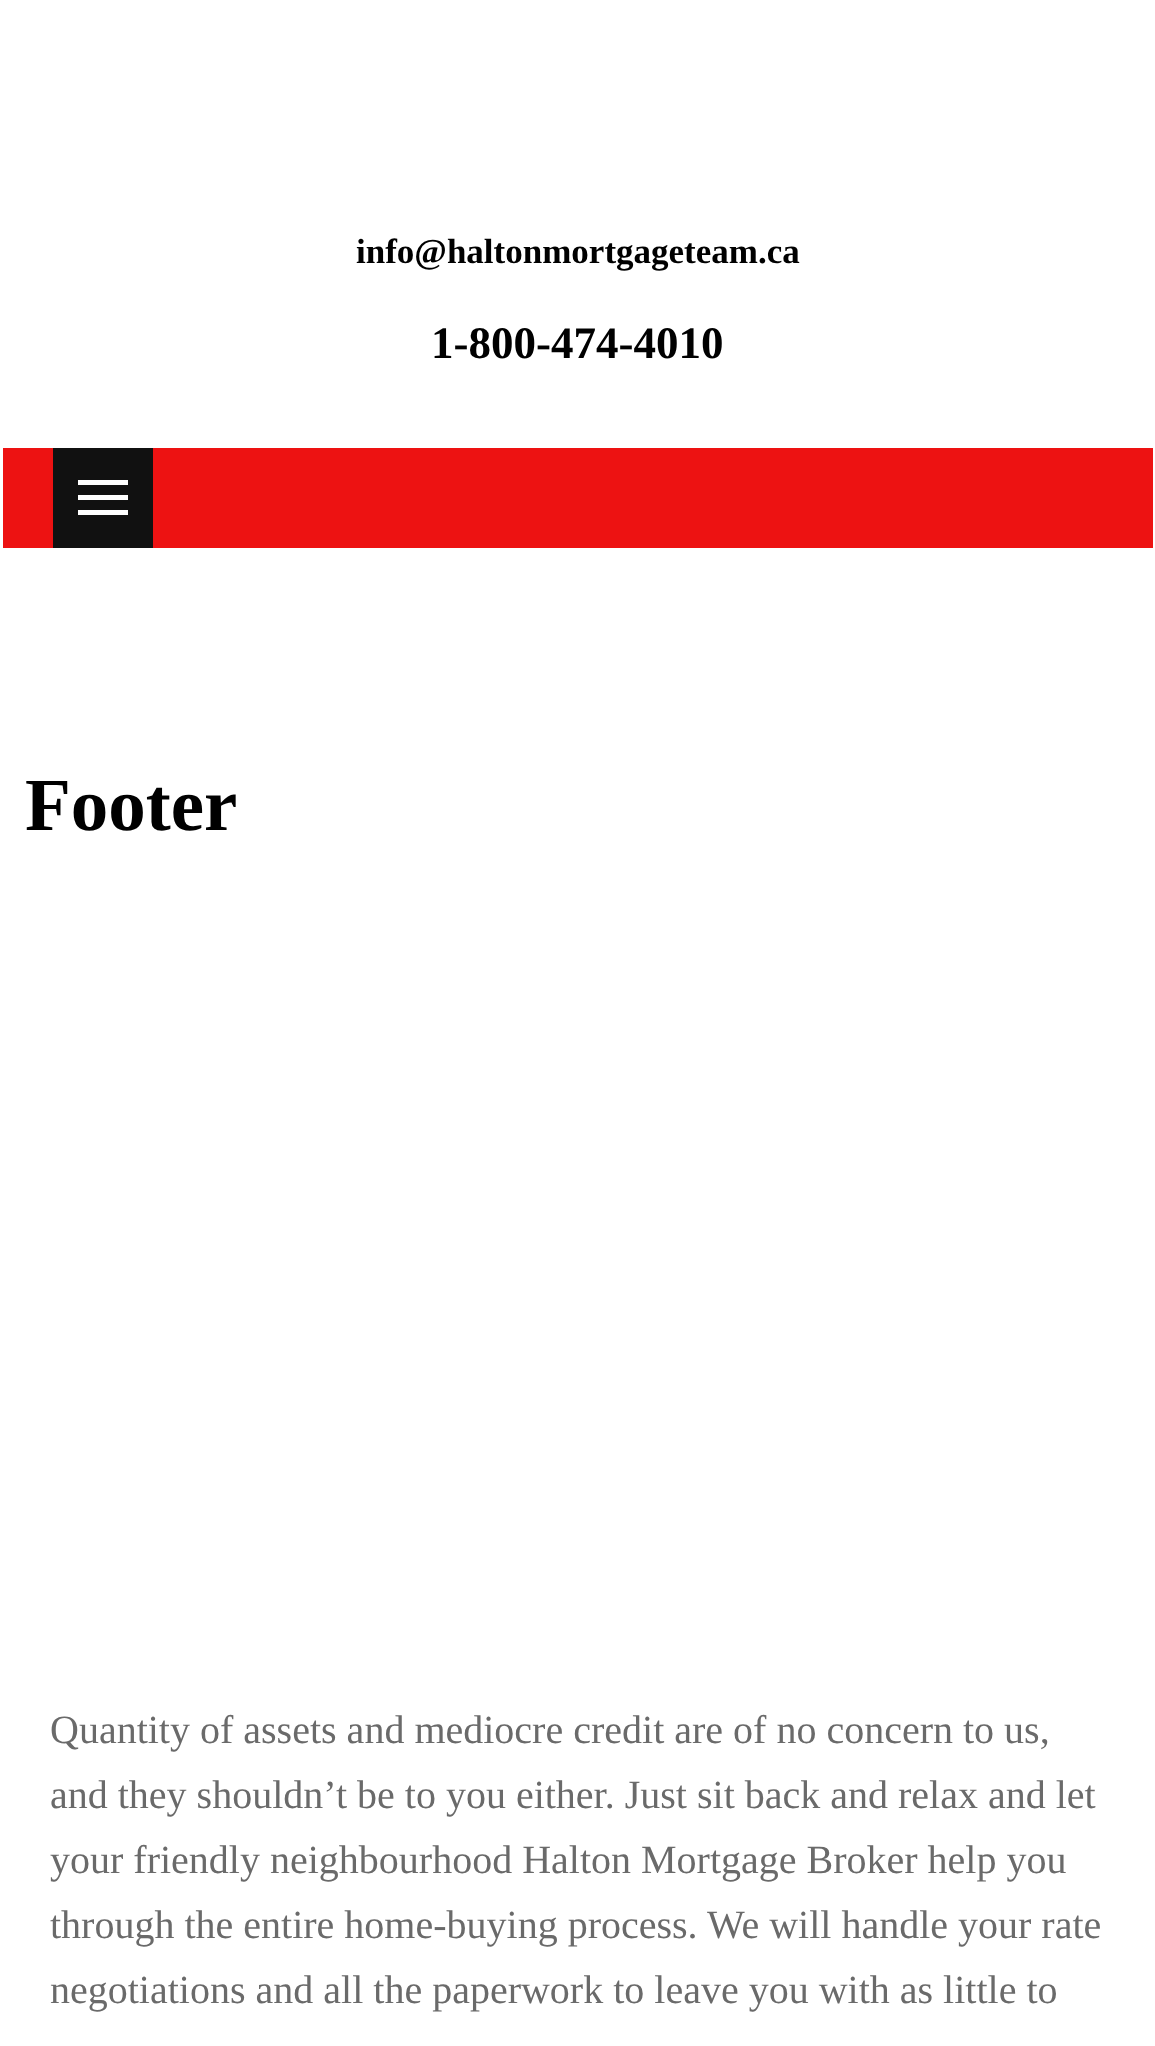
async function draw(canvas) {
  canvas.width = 1155
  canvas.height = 2046
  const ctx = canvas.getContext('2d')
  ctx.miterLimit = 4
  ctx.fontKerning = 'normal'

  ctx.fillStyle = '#fff'
  ctx.fillRect(0, 0, 1155, 2046)
  ctx.font = 'bold 35px Liberation Serif'
  ctx.fillStyle = '#000'
  ctx.fillText('info@haltonmortgageteam.ca', 356, 263)
  ctx.font = 'bold 45px Liberation Serif'
  ctx.fillText('1-800-474-4010', 431, 358)
  ctx.fillStyle = '#ed1212'
  ctx.fillRect(3, 448, 1150, 100)
  ctx.fillStyle = '#111'
  ctx.fillRect(53, 448, 100, 100)
  ctx.fillStyle = '#fff'
  ctx.fillRect(78, 480, 50, 5)
  ctx.fillRect(78, 495, 50, 5)
  ctx.fillRect(78, 510, 50, 5)
  ctx.font = 'bold 75px Liberation Serif'
  ctx.fillStyle = '#000'
  ctx.fillText('Footer', 25, 830)
  ctx.font = '40px Liberation Serif'
  ctx.fillStyle = '#6a6a6a'
  ctx.fillText('Quantity of assets and mediocre credit are of no concern to us,', 50, 1743)
  ctx.fillText('and they shouldn’t be to you either. Just sit back and relax and let', 50, 1808)
  ctx.fillText('your friendly neighbourhood Halton Mortgage Broker help you', 50, 1873)
  ctx.fillText('through the entire home-buying process. We will handle your rate', 50, 1938)
  ctx.fillText('negotiations and all the paperwork to leave you with as little to', 50, 2003)
}

draw(document.querySelector('canvas'))
